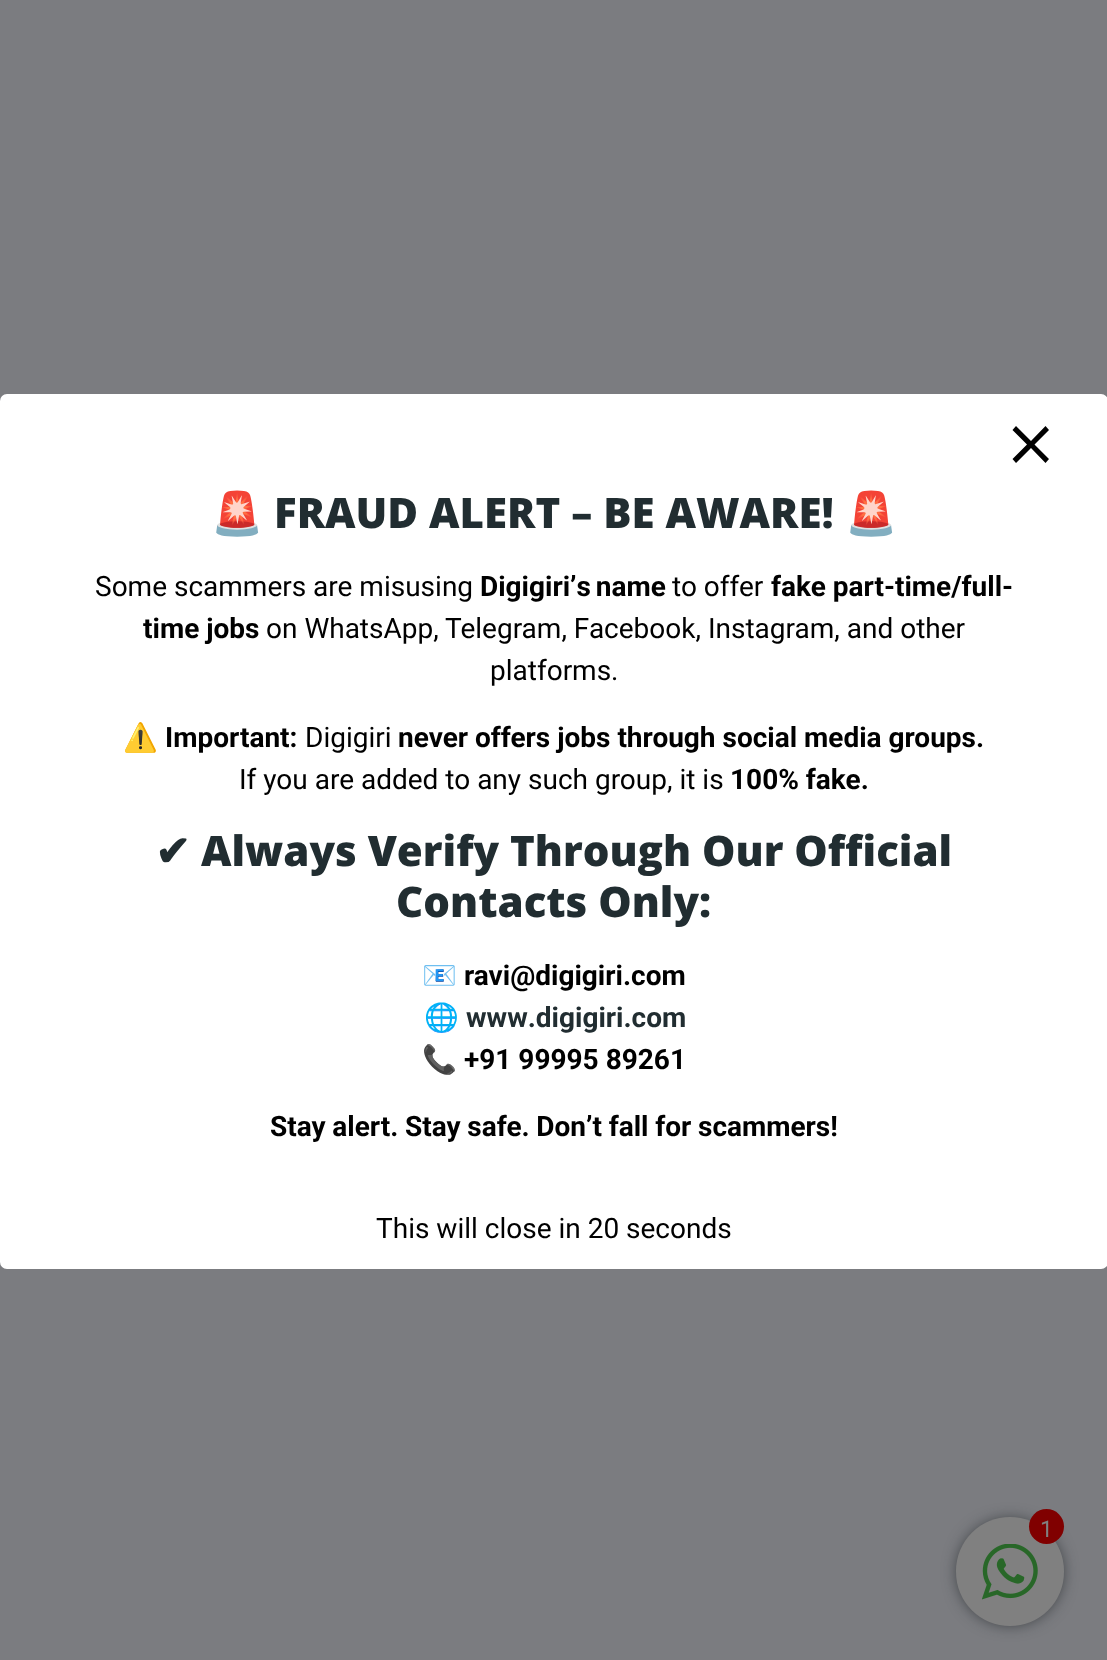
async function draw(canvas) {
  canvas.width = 1107
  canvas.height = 1660
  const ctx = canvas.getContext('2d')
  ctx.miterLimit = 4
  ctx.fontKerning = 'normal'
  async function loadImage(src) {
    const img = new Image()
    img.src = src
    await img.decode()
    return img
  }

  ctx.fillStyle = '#7b7c80'
  ctx.fillRect(0, 0, 1107, 1660)
  ctx.fillStyle = '#fff'
  ctx.beginPath()
  ctx.roundRect(1, 395, 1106, 873, 6)
  ctx.fill()
  ctx.strokeStyle = '#fff'
  ctx.lineWidth = 2
  ctx.stroke()
  ctx.fillStyle = '#000'
  ctx.beginPath()
  ctx.moveTo(1049, 430)
  ctx.lineTo(1045.5, 426)
  ctx.lineTo(1031, 441)
  ctx.lineTo(1016, 426)
  ctx.lineTo(1012.5, 430)
  ctx.lineTo(1027, 444.5)
  ctx.lineTo(1012.5, 459)
  ctx.lineTo(1016, 463)
  ctx.lineTo(1031, 448)
  ctx.lineTo(1045.5, 463)
  ctx.lineTo(1049, 459)
  ctx.lineTo(1034.5, 444.5)
  ctx.closePath()
  ctx.fill()
  ctx.font = 'bold 42px Noto Color Emoji'
  ctx.fillStyle = '#212d31'
  ctx.fillText('🚨', 211, 528)
  ctx.font = '800 42px Open Sans'
  ctx.fillText('FRAUD ALERT – BE AWARE!', 274, 528)
  ctx.font = 'bold 42px Noto Color Emoji'
  ctx.fillText('🚨', 845, 528)
  ctx.font = '28px Roboto'
  ctx.fillStyle = '#000'
  ctx.fillText('Some scammers are misusing', 95, 596)
  ctx.wordSpacing = '-2px'
  ctx.font = 'bold 28px Roboto'
  ctx.fillText('Digigiri’s name', 480, 596)
  ctx.wordSpacing = '0px'
  ctx.font = '28px Roboto'
  ctx.fillText('to offer', 672, 596)
  ctx.font = 'bold 28px Roboto'
  ctx.fillText('fake part-time/full-', 771, 596)
  ctx.fillText('time jobs', 143, 638)
  ctx.font = '28px Roboto'
  ctx.fillText('on WhatsApp, Telegram, Facebook, Instagram, and other', 266, 638)
  ctx.fillText('platforms.', 490, 680)
  ctx.font = '28px Noto Color Emoji'
  ctx.fillText('⚠️', 123, 747)
  ctx.font = 'bold 28px Roboto'
  ctx.fillText('Important:', 165, 747)
  ctx.font = '28px Roboto'
  ctx.fillText('Digigiri', 305, 747)
  ctx.font = 'bold 28px Roboto'
  ctx.fillText('never offers jobs through social media groups.', 398, 747)
  ctx.font = '28px Roboto'
  ctx.fillText('If you are added to any such group, it is', 239, 789)
  ctx.font = 'bold 28px Roboto'
  ctx.fillText('100% fake.', 730, 789)
  ctx.font = 'bold 42px DejaVu Sans'
  ctx.fillStyle = '#212d31'
  ctx.fillText('✔', 155, 866)
  ctx.font = '800 42px Open Sans'
  ctx.fillText('Always Verify Through Our Official', 201, 866)
  ctx.fillText('Contacts Only:', 396, 917)
  ctx.font = '28px Noto Color Emoji'
  ctx.fillStyle = '#000'
  ctx.fillText('📧', 422, 985)
  ctx.font = 'bold 28px Roboto'
  ctx.fillText('ravi@digigiri.com', 464, 985)
  ctx.font = '28px Noto Color Emoji'
  ctx.fillText('🌐', 424, 1027)
  ctx.font = 'bold 28px Roboto'
  ctx.fillStyle = '#212d31'
  ctx.fillText('www.digigiri.com', 466, 1027)
  ctx.font = '28px Noto Color Emoji'
  ctx.fillStyle = '#000'
  ctx.fillText('📞', 422, 1069)
  ctx.font = 'bold 28px Roboto'
  ctx.fillText('+91 99995 89261', 464, 1069)
  ctx.wordSpacing = '-0.25px'
  ctx.fillText('Stay alert. Stay safe. Don’t fall for scammers!', 270, 1136)
  ctx.wordSpacing = '0px'
  ctx.font = '28px Roboto'
  ctx.fillText('This will close in 20 seconds', 376, 1238)
  ctx.fillStyle = '#111719'
  ctx.filter = 'blur(9px)'
  ctx.beginPath()
  ctx.roundRect(961, 1523, 98, 98, 49)
  ctx.fill()
  ctx.filter = 'none'
  ctx.fillStyle = '#808080'
  ctx.beginPath()
  ctx.roundRect(956, 1517, 108, 109, 54)
  ctx.fill()
  ctx.fillStyle = '#800000'
  ctx.beginPath()
  ctx.arc(1046.5, 1526.5, 17.5, 0, 2 * Math.PI)
  ctx.fill()
  ctx.font = '23px Roboto'
  ctx.fillStyle = '#808080'
  ctx.fillText('1', 1040, 1537)
  ctx.drawImage(await loadImage('image0.png'), 982, 1544, 56, 56)
}

draw(document.querySelector('canvas'))
